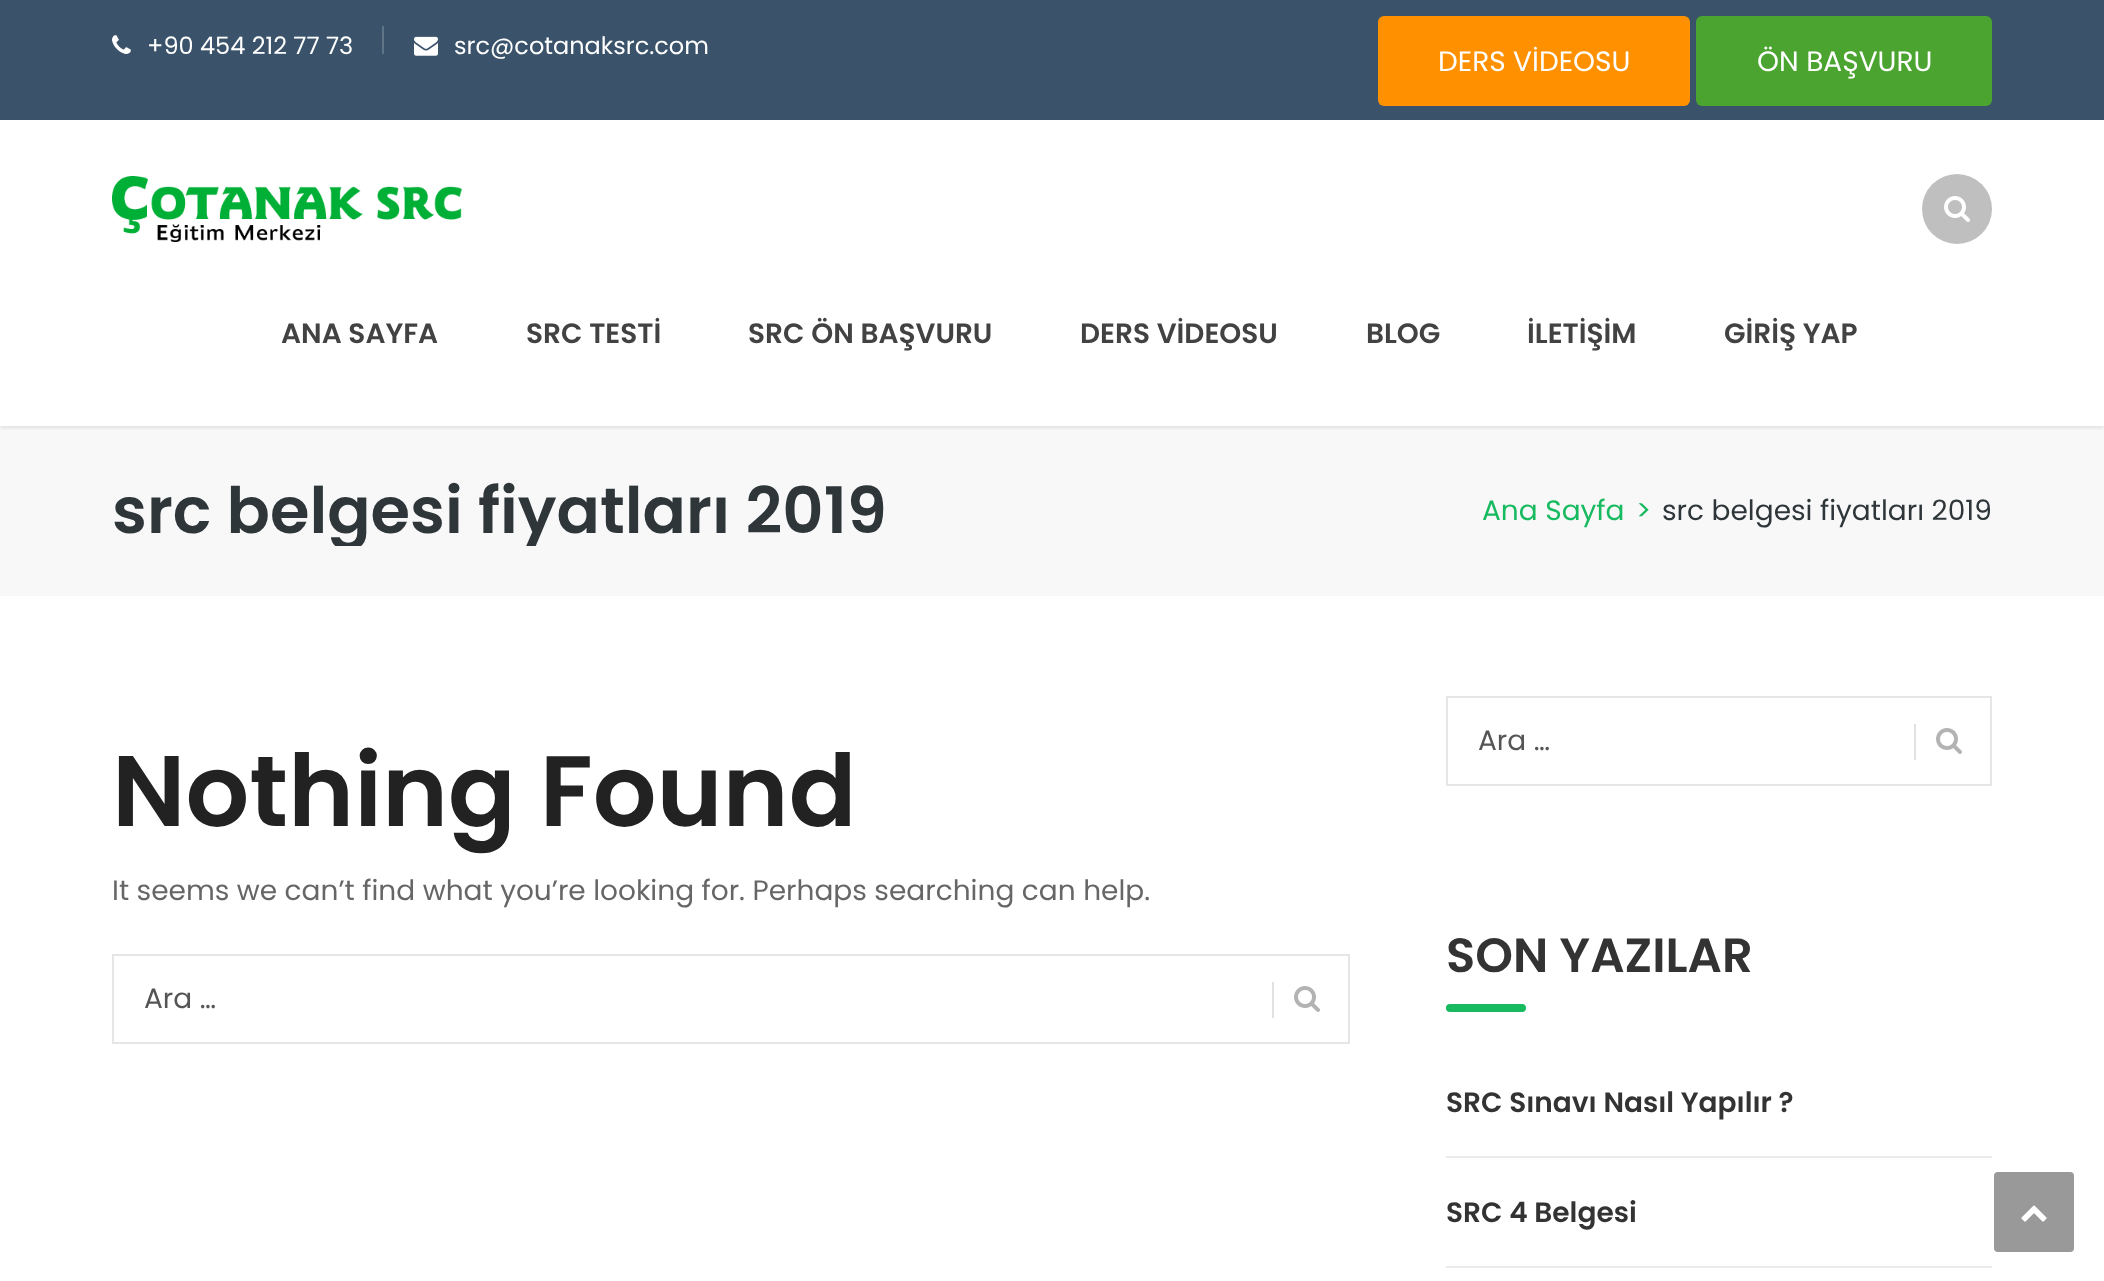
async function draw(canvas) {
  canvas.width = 2104
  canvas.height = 1281
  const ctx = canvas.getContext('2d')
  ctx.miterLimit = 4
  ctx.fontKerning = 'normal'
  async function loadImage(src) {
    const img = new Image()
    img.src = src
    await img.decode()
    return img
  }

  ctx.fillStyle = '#fff'
  ctx.fillRect(0, 0, 2104, 1281)
  ctx.fillStyle = '#3a526a'
  ctx.fillRect(0, 0, 2104, 120)
  ctx.drawImage(await loadImage('image0.png'), 112, 35, 19, 19)
  ctx.font = '24px Poppins'
  ctx.fillStyle = '#fff'
  ctx.fillText('+90 454 212 77 73', 147, 54)
  ctx.fillStyle = '#617588'
  ctx.fillRect(382, 26, 2, 28)
  ctx.drawImage(await loadImage('image1.png'), 414, 36, 24, 20)
  ctx.fillStyle = '#fff'
  ctx.fillText('src@cotanaksrc.com', 454, 54)
  ctx.fillStyle = '#ff9100'
  ctx.beginPath()
  ctx.roundRect(1378, 16, 312, 90, 6)
  ctx.fill()
  ctx.font = '28px Poppins'
  ctx.fillStyle = '#fff'
  ctx.fillText('DERS VİDEOSU', 1438, 71)
  ctx.fillStyle = '#4aa42f'
  ctx.beginPath()
  ctx.roundRect(1696, 16, 296, 90, 6)
  ctx.fill()
  ctx.fillStyle = '#fff'
  ctx.fillText('ÖN BAŞVURU', 1757, 71)
  ctx.fillStyle = '#f8f8f8'
  ctx.fillRect(0, 426, 2104, 170)
  ctx.save()
  ctx.beginPath()
  ctx.rect(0, 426, 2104, 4)
  ctx.clip()
  ctx.fillStyle = '#0000001a'
  ctx.filter = 'blur(2px)'
  ctx.beginPath()
  ctx.rect(0, 122, 2104, 306)
  ctx.fill()
  ctx.filter = 'none'
  ctx.restore()
  ctx.drawImage(await loadImage('image2.png'), 112, 176, 350, 66)
  ctx.fillStyle = '#bfbfbf'
  ctx.beginPath()
  ctx.arc(1957, 209, 35, 0, 2 * Math.PI)
  ctx.fill()
  ctx.drawImage(await loadImage('image3.png'), 1944, 196, 26, 26)
  ctx.font = '600 28px Poppins'
  ctx.fillStyle = '#424242'
  ctx.fillText('ANA SAYFA', 281, 343)
  ctx.fillText('SRC TESTİ', 526, 343)
  ctx.fillText('SRC ÖN BAŞVURU', 748, 343)
  ctx.fillText('DERS VİDEOSU', 1080, 343)
  ctx.fillText('BLOG', 1366, 343)
  ctx.fillText('İLETİŞİM', 1527, 343)
  ctx.fillText('GİRİŞ YAP', 1724, 343)
  ctx.save()
  ctx.beginPath()
  ctx.rect(82, 476, 1940, 70)
  ctx.clip()
  ctx.font = '600 64px Poppins'
  ctx.fillStyle = '#2e363a'
  ctx.fillText('src belgesi fiyatları 2019', 112, 533)
  ctx.restore()
  ctx.font = '28px Poppins'
  ctx.fillStyle = '#18ba60'
  ctx.fillText('Ana Sayfa', 1482, 520)
  ctx.fillText('>', 1636, 520)
  ctx.fillStyle = '#2e363a'
  ctx.fillText('src belgesi fiyatları 2019', 1662, 520)
  ctx.font = '600 100px Poppins'
  ctx.fillStyle = '#222'
  ctx.fillText('Nothing Found', 112, 826)
  ctx.font = '28px Poppins'
  ctx.fillStyle = '#666'
  ctx.fillText('It seems we can’t find what you’re looking for. Perhaps searching can help.', 112, 900)
  ctx.strokeStyle = '#e6e6e6'
  ctx.lineWidth = 2
  ctx.strokeRect(113, 955, 1236, 88)
  ctx.fillStyle = '#555'
  ctx.fillText('Ara …', 144, 1008)
  ctx.drawImage(await loadImage('image4.png'), 1294, 986, 26, 26)
  ctx.fillStyle = '#e1e1e1'
  ctx.fillRect(1272, 982, 2, 36)
  ctx.strokeRect(1447, 697, 544, 88)
  ctx.fillStyle = '#555'
  ctx.fillText('Ara …', 1478, 750)
  ctx.drawImage(await loadImage('image4.png'), 1936, 728, 26, 26)
  ctx.fillStyle = '#e1e1e1'
  ctx.fillRect(1914, 724, 2, 36)
  ctx.font = '600 48px Poppins'
  ctx.fillStyle = '#333'
  ctx.fillText('SON YAZILAR', 1446, 972)
  ctx.fillStyle = '#18ba60'
  ctx.beginPath()
  ctx.roundRect(1446, 1004, 80, 8, 4)
  ctx.fill()
  ctx.fillStyle = '#ebebeb'
  ctx.fillRect(1446, 1156, 546, 2)
  ctx.font = '600 28px Poppins'
  ctx.fillStyle = '#333'
  ctx.fillText('SRC Sınavı Nasıl Yapılır ?', 1446, 1112)
  ctx.fillStyle = '#ebebeb'
  ctx.fillRect(1446, 1266, 546, 2)
  ctx.fillStyle = '#333'
  ctx.fillText('SRC 4 Belgesi', 1446, 1222)
  ctx.fillStyle = '#999'
  ctx.beginPath()
  ctx.roundRect(1994, 1172, 80, 80, 4)
  ctx.fill()
  ctx.drawImage(await loadImage('image5.png'), 2021, 1205, 26, 17)
}

draw(document.querySelector('canvas'))
